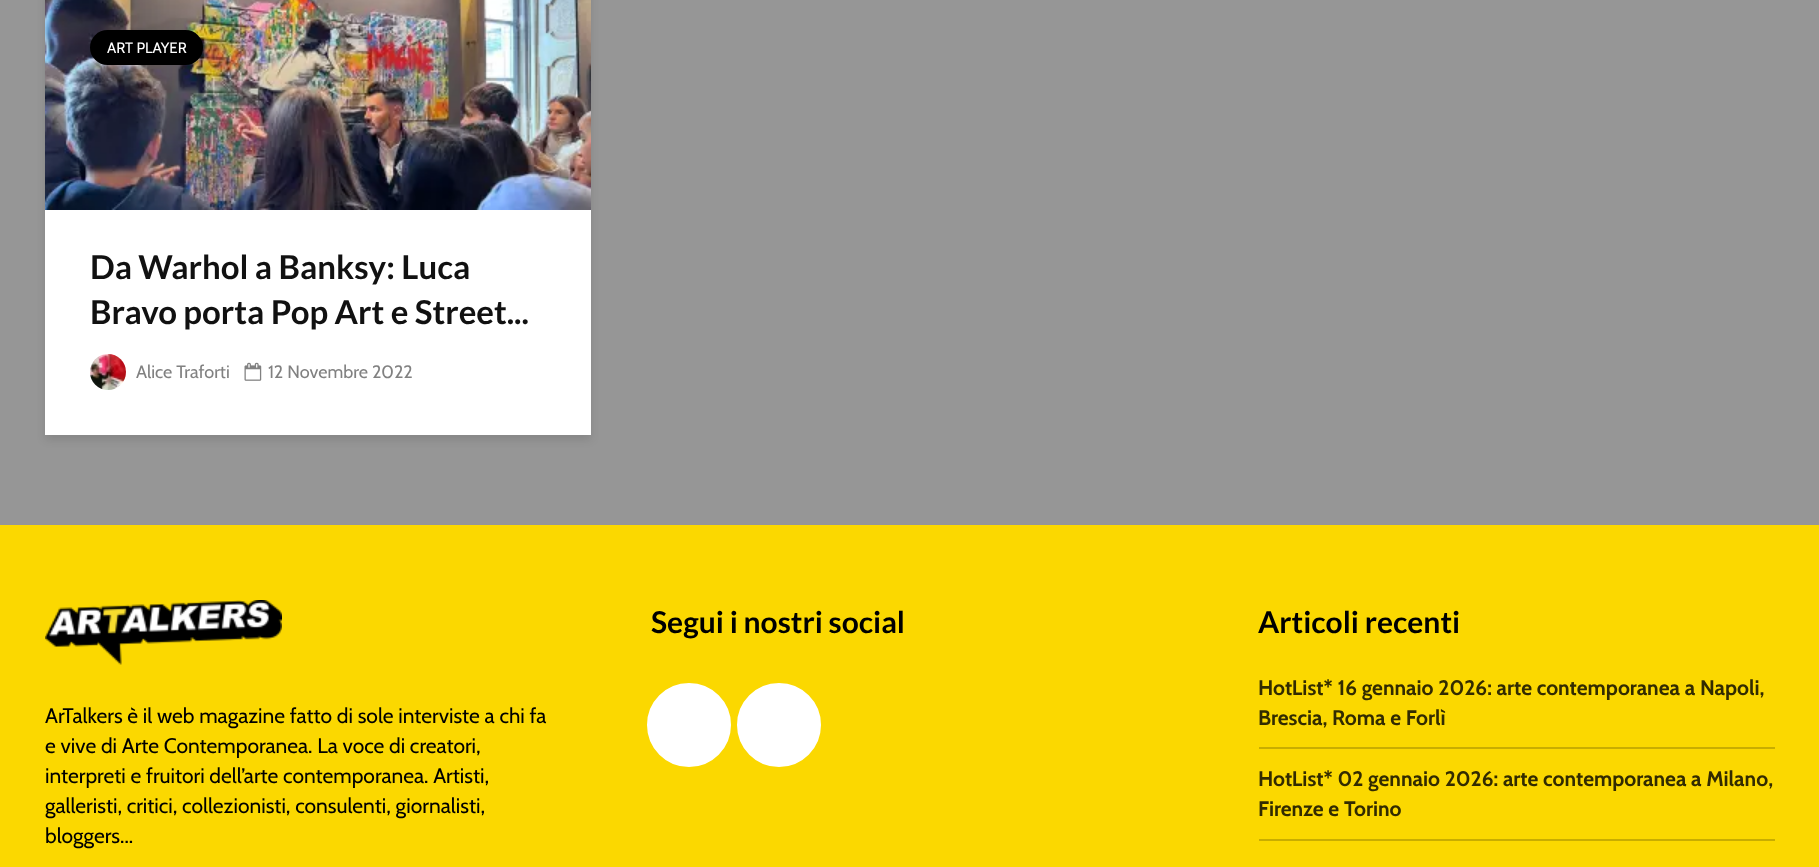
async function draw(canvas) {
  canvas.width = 1819
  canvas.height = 867
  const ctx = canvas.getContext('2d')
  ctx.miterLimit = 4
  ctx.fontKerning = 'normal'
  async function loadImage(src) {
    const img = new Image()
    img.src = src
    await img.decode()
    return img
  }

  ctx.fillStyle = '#969696'
  ctx.fillRect(0, 0, 1819, 867)
  ctx.fillStyle = '#0001011a'
  ctx.filter = 'blur(4px)'
  ctx.beginPath()
  ctx.rect(45, -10, 546, 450)
  ctx.fill()
  ctx.filter = 'none'
  ctx.fillStyle = '#fff'
  ctx.fillRect(45, 210, 546, 225)
  ctx.drawImage(await loadImage('image0.png'), 45, 0, 546, 210)
  ctx.fillStyle = '#000'
  ctx.beginPath()
  ctx.roundRect(90, 30, 113, 35, 17.5)
  ctx.fill()
  ctx.font = '15px Cabin'
  ctx.fillStyle = '#fff'
  ctx.fillText('ART PLAYER', 107, 53)
  ctx.font = 'bold 33px Lato'
  ctx.fillStyle = '#111'
  ctx.fillText('Da Warhol a Banksy: Luca', 90, 279)
  ctx.fillText('Bravo porta Pop Art e Street...', 90, 324)
  ctx.drawImage(await loadImage('image1.png'), 90, 354, 36, 36)
  ctx.font = '18px Cabin'
  ctx.fillStyle = '#818181'
  ctx.fillText('Alice Traforti', 136, 378)
  ctx.drawImage(await loadImage('image2.png'), 244, 362, 18, 19)
  ctx.fillText('12 Novembre 2022', 268, 378)
  ctx.fillStyle = '#fbd800'
  ctx.fillRect(0, 525, 1819, 342)
  ctx.drawImage(await loadImage('image3.png'), 45, 600, 237, 65)
  ctx.font = '21px Cabin'
  ctx.fillStyle = '#000'
  ctx.fillText('ArTalkers è il web magazine fatto di sole interviste a chi fa', 45, 723)
  ctx.fillText('e vive di Arte Contemporanea. La voce di creatori,', 45, 753)
  ctx.fillText('interpreti e fruitori dell’arte contemporanea. Artisti,', 45, 783)
  ctx.fillText('galleristi, critici, collezionisti, consulenti, giornalisti,', 45, 813)
  ctx.fillText('bloggers...', 45, 843)
  ctx.font = 'bold 30px Lato'
  ctx.fillText('Segui i nostri social', 651, 633)
  ctx.fillStyle = '#fff'
  ctx.beginPath()
  ctx.arc(689, 725, 39.5, 0, 2 * Math.PI)
  ctx.fill()
  ctx.strokeStyle = '#fff'
  ctx.lineWidth = 5
  ctx.stroke()
  ctx.beginPath()
  ctx.arc(779, 725, 39.5, 0, 2 * Math.PI)
  ctx.fill()
  ctx.stroke()
  ctx.fillStyle = '#000'
  ctx.fillText('Articoli recenti', 1258, 633)
  ctx.fillStyle = '#c9ad00'
  ctx.fillRect(1259, 747, 516, 2)
  ctx.font = 'bold 21px Cabin'
  ctx.fillStyle = '#322b00'
  ctx.fillText('HotList* 16 gennaio 2026: arte contemporanea a Napoli,', 1258, 695)
  ctx.fillText('Brescia, Roma e Forlì', 1258, 725)
  ctx.fillStyle = '#c9ad00'
  ctx.fillRect(1259, 839, 516, 2)
  ctx.fillStyle = '#322b00'
  ctx.fillText('HotList* 02 gennaio 2026: arte contemporanea a Milano,', 1258, 786)
  ctx.fillText('Firenze e Torino', 1258, 816)
}

draw(document.querySelector('canvas'))
